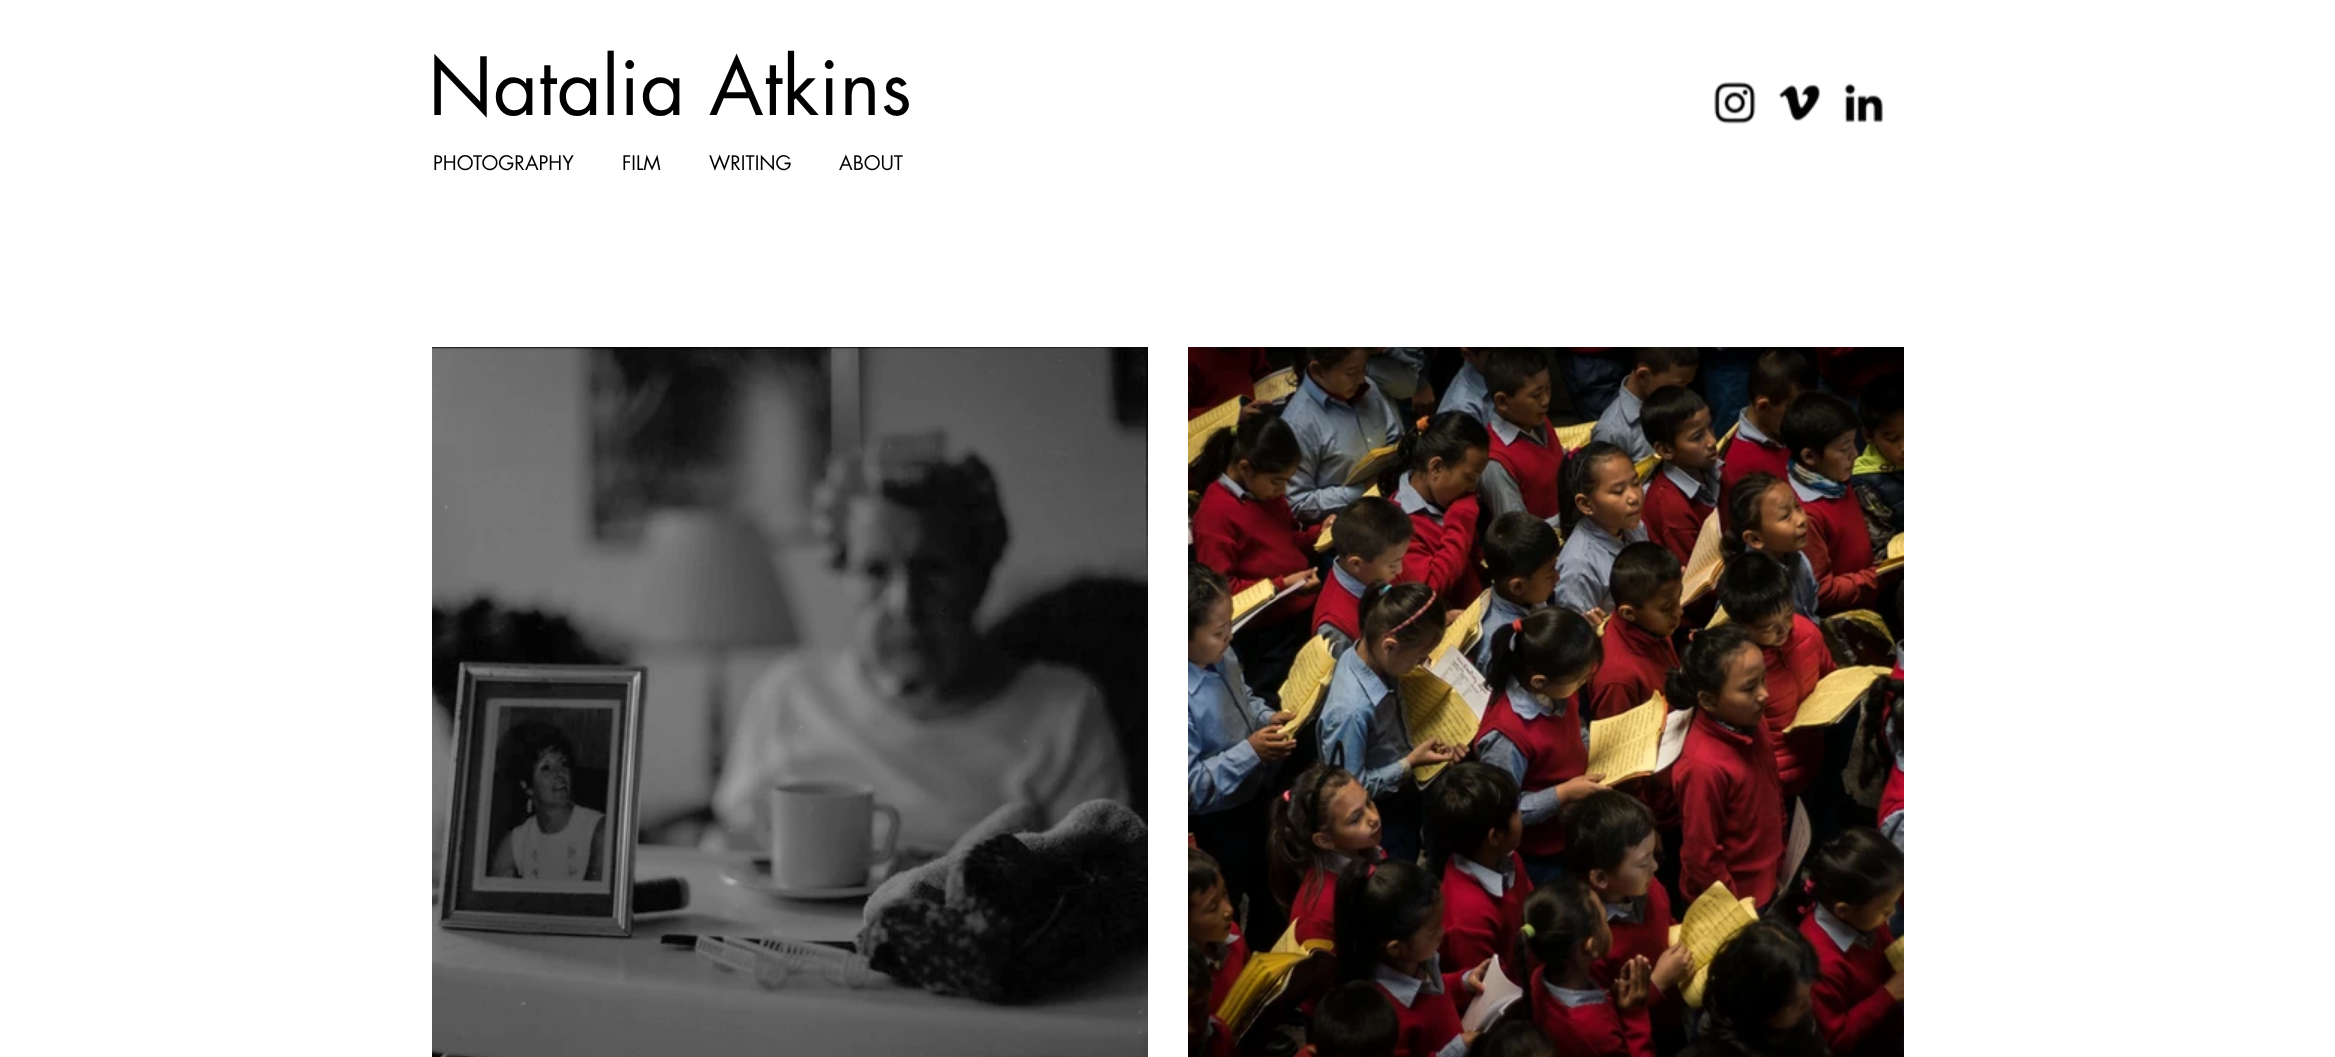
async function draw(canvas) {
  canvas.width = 2335
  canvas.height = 1057
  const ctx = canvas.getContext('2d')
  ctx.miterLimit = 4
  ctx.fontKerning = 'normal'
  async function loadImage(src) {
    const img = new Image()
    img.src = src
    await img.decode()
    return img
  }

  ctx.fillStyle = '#fff'
  ctx.fillRect(0, 0, 2335, 1057)
  ctx.font = '78px futura'
  ctx.fillStyle = '#000'
  ctx.fillText('Natalia Atkins', 428, 115)
  ctx.drawImage(await loadImage('image0.png'), 1714, 81, 42, 43)
  ctx.drawImage(await loadImage('image1.png'), 1778, 84, 42, 37)
  ctx.drawImage(await loadImage('image2.png'), 1844, 83, 39, 40)
  ctx.font = '19.5px futura'
  ctx.fillText('PHOTOGRAPHY', 433, 170)
  ctx.fillText('FILM', 622, 170)
  ctx.fillText('WRITING', 709, 170)
  ctx.fillText('ABOUT', 839, 170)
  ctx.drawImage(await loadImage('image3.png'), 432, 347, 716, 710)
  ctx.drawImage(await loadImage('image4.png'), 1188, 347, 716, 710)
}

draw(document.querySelector('canvas'))
